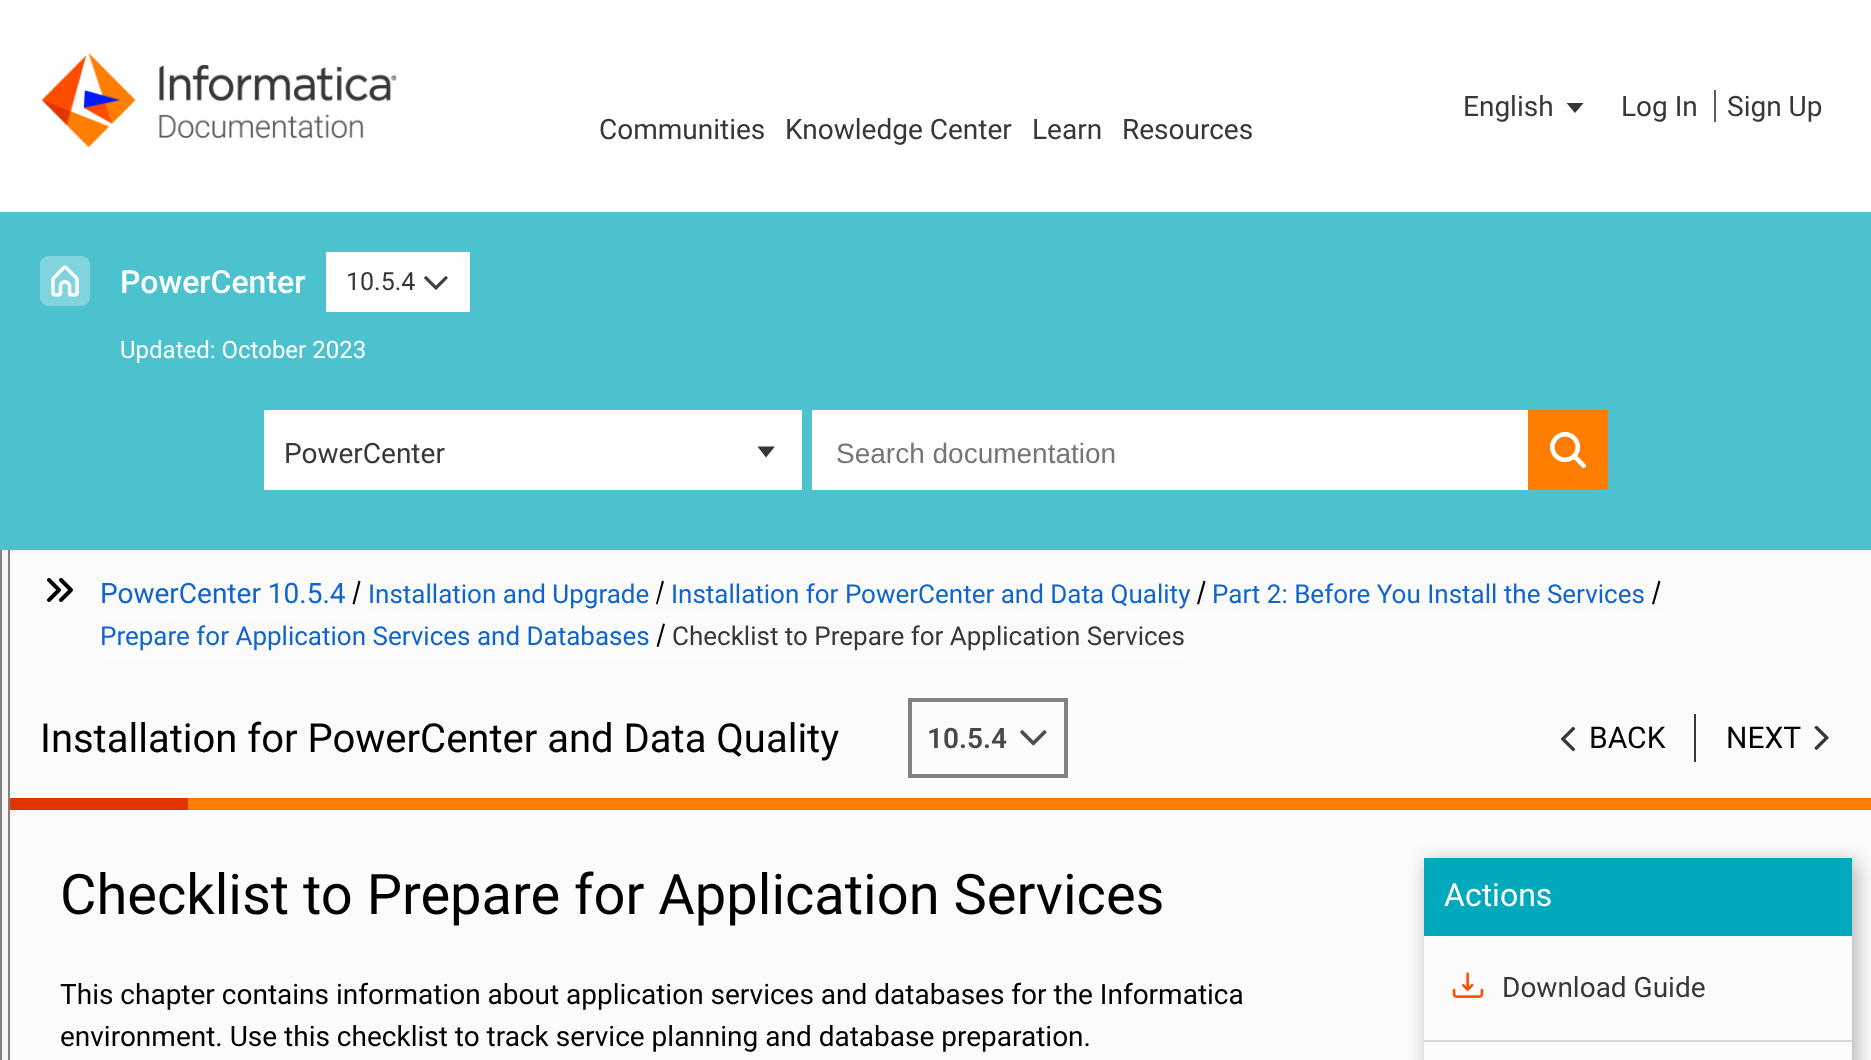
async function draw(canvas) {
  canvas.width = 1871
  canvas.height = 1060
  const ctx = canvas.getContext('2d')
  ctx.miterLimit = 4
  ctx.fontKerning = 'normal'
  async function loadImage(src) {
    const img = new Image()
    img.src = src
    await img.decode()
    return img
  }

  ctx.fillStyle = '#fff'
  ctx.fillRect(0, 0, 1871, 1060)
  ctx.drawImage(await loadImage('image0.png'), 41, 52, 356, 96)
  ctx.font = '28px Roboto'
  ctx.fillStyle = '#373737'
  ctx.fillText('English', 1463, 116)
  ctx.beginPath()
  ctx.moveTo(1583.5, 103)
  ctx.lineTo(1575, 113)
  ctx.lineTo(1566.5, 103)
  ctx.closePath()
  ctx.fill()
  ctx.fillText('Log In', 1621, 116)
  ctx.fillStyle = '#5d5d5d'
  ctx.fillRect(1714, 90, 2, 32)
  ctx.fillStyle = '#373737'
  ctx.fillText('Sign Up', 1727, 116)
  ctx.fillText('Communities', 599, 139)
  ctx.fillText('Knowledge Center', 785, 139)
  ctx.fillText('Learn', 1032, 139)
  ctx.fillText('Resources', 1122, 139)
  ctx.fillStyle = '#4dc2cf'
  ctx.fillRect(0, 212, 1871, 338)
  ctx.drawImage(await loadImage('image1.png'), 40, 256, 50, 50)
  ctx.font = '500 32px Roboto'
  ctx.fillStyle = '#fff'
  ctx.fillText('PowerCenter', 120, 293)
  ctx.fillRect(326, 252, 144, 60)
  ctx.font = '25px Roboto'
  ctx.fillStyle = '#373737'
  ctx.fillText('10.5.4', 346, 290)
  ctx.drawImage(await loadImage('image2.png'), 424, 276, 24, 14)
  ctx.font = '24px Roboto'
  ctx.fillStyle = '#fff'
  ctx.fillText('Updated: October 2023', 120, 358)
  ctx.fillRect(264, 410, 538, 80)
  ctx.font = '28px Roboto'
  ctx.fillStyle = '#373737'
  ctx.fillText('PowerCenter', 284, 463)
  ctx.beginPath()
  ctx.moveTo(775, 446.5)
  ctx.lineTo(766, 457.5)
  ctx.lineTo(757.5, 446.5)
  ctx.closePath()
  ctx.fill()
  ctx.fillStyle = '#fff'
  ctx.fillRect(812, 410, 716, 80)
  ctx.font = '28px Liberation Sans'
  ctx.fillStyle = '#757575'
  ctx.fillText('Search documentation', 836, 463)
  ctx.fillStyle = '#ff7d00'
  ctx.fillRect(1528, 410, 80, 80)
  ctx.drawImage(await loadImage('image3.png'), 1550, 432, 36, 36)
  ctx.fillStyle = '#f4f4f4'
  ctx.fillRect(2, 550, 6, 510)
  ctx.fillStyle = '#808080'
  ctx.fillRect(8, 550, 2, 510)
  ctx.fillRect(0, 550, 2, 510)
  ctx.fillStyle = '#fbfbfb'
  ctx.fillRect(10, 550, 1861, 510)
  ctx.drawImage(await loadImage('image4.png'), 47, 578, 26, 24)
  ctx.fillStyle = '#fff'
  ctx.fillRect(100, 616, 268, 2)
  ctx.font = '28px Roboto'
  ctx.fillStyle = '#0f64cd'
  ctx.fillText('PowerCenter 10.5.4', 100, 603)
  ctx.fillStyle = '#000'
  ctx.beginPath()
  ctx.moveTo(358.5, 580.5)
  ctx.lineTo(360.5, 581.5)
  ctx.lineTo(354.5, 604.5)
  ctx.lineTo(352.5, 604)
  ctx.closePath()
  ctx.fill()
  ctx.fillStyle = '#fff'
  ctx.fillRect(368, 614, 1300, 2)
  ctx.font = '26px Roboto'
  ctx.fillStyle = '#0f64cd'
  ctx.fillText('Installation and Upgrade', 368, 603)
  ctx.fillStyle = '#000'
  ctx.beginPath()
  ctx.moveTo(662, 580.5)
  ctx.lineTo(664, 581.5)
  ctx.lineTo(657.5, 604.5)
  ctx.lineTo(656, 604)
  ctx.closePath()
  ctx.fill()
  ctx.fillStyle = '#0f64cd'
  ctx.fillText('Installation for PowerCenter and Data Quality', 671, 603)
  ctx.fillStyle = '#000'
  ctx.beginPath()
  ctx.moveTo(1203.5, 580.5)
  ctx.lineTo(1205.5, 581.5)
  ctx.lineTo(1199, 604.5)
  ctx.lineTo(1197, 604)
  ctx.closePath()
  ctx.fill()
  ctx.fillStyle = '#0f64cd'
  ctx.fillText('Part 2: Before You Install the Services', 1212, 603)
  ctx.fillStyle = '#000'
  ctx.beginPath()
  ctx.moveTo(1658.5, 580.5)
  ctx.lineTo(1660.5, 581.5)
  ctx.lineTo(1654, 604.5)
  ctx.lineTo(1652, 604)
  ctx.closePath()
  ctx.fill()
  ctx.fillStyle = '#fff'
  ctx.fillRect(100, 656, 1084, 2)
  ctx.fillStyle = '#0f64cd'
  ctx.fillText('Prepare for Application Services and Databases', 100, 645)
  ctx.fillStyle = '#000'
  ctx.beginPath()
  ctx.moveTo(663, 623.5)
  ctx.lineTo(665, 624)
  ctx.lineTo(658.5, 647)
  ctx.lineTo(656.5, 646.5)
  ctx.closePath()
  ctx.fill()
  ctx.fillStyle = '#373737'
  ctx.fillText('Checklist to Prepare for Application Services', 672, 645)
  ctx.font = '40px Roboto'
  ctx.fillStyle = '#000'
  ctx.fillText('Installation for PowerCenter and Data Quality', 40, 752)
  ctx.strokeStyle = '#828282'
  ctx.lineWidth = 4
  ctx.strokeRect(910, 700, 156, 76)
  ctx.font = '600 28px Roboto'
  ctx.fillStyle = '#484848'
  ctx.fillText('10.5.4', 927, 748)
  ctx.drawImage(await loadImage('image5.png'), 1020, 730, 27, 16)
  ctx.drawImage(await loadImage('image6.png'), 1560, 726, 16, 26)
  ctx.font = '30px Roboto'
  ctx.fillStyle = '#000'
  ctx.fillText('BACK', 1589, 748)
  ctx.fillStyle = '#373737'
  ctx.fillRect(1694, 714, 2, 48)
  ctx.fillStyle = '#000'
  ctx.fillText('NEXT', 1726, 748)
  ctx.drawImage(await loadImage('image7.png'), 1814, 726, 15, 24)
  ctx.fillStyle = '#ff7d00'
  ctx.fillRect(188, 798, 1683, 12)
  ctx.fillStyle = '#e23400'
  ctx.fillRect(10, 798, 178, 12)
  ctx.font = '56px Roboto'
  ctx.fillStyle = '#000'
  ctx.fillText('Checklist to Prepare for Application Services', 60, 914)
  ctx.font = '28px Roboto'
  ctx.fillText('This chapter contains information about application services and databases for the Informatica', 60, 1004)
  ctx.fillText('environment. Use this checklist to track service planning and database preparation.', 60, 1046)
  ctx.save()
  ctx.beginPath()
  ctx.moveTo(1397, 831)
  ctx.lineTo(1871, 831)
  ctx.lineTo(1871, 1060)
  ctx.lineTo(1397, 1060)
  ctx.closePath()
  ctx.moveTo(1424, 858)
  ctx.lineTo(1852, 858)
  ctx.lineTo(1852, 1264)
  ctx.lineTo(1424, 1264)
  ctx.closePath()
  ctx.clip('evenodd')
  ctx.fillStyle = '#0000004d'
  ctx.filter = 'blur(10px)'
  ctx.beginPath()
  ctx.rect(1428, 862, 428, 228)
  ctx.fill()
  ctx.filter = 'none'
  ctx.restore()
  ctx.fillStyle = '#00a9bb'
  ctx.fillRect(1424, 858, 428, 78)
  ctx.font = '32px Roboto'
  ctx.fillStyle = '#fff'
  ctx.fillText('Actions', 1444, 906)
  ctx.fillStyle = '#d8d8d8'
  ctx.fillRect(1424, 1040, 428, 2)
  ctx.drawImage(await loadImage('image8.png'), 1452, 972, 32, 26)
  ctx.font = '28px Roboto'
  ctx.fillStyle = '#373737'
  ctx.fillText('Download Guide', 1502, 997)
}

draw(document.querySelector('canvas'))
